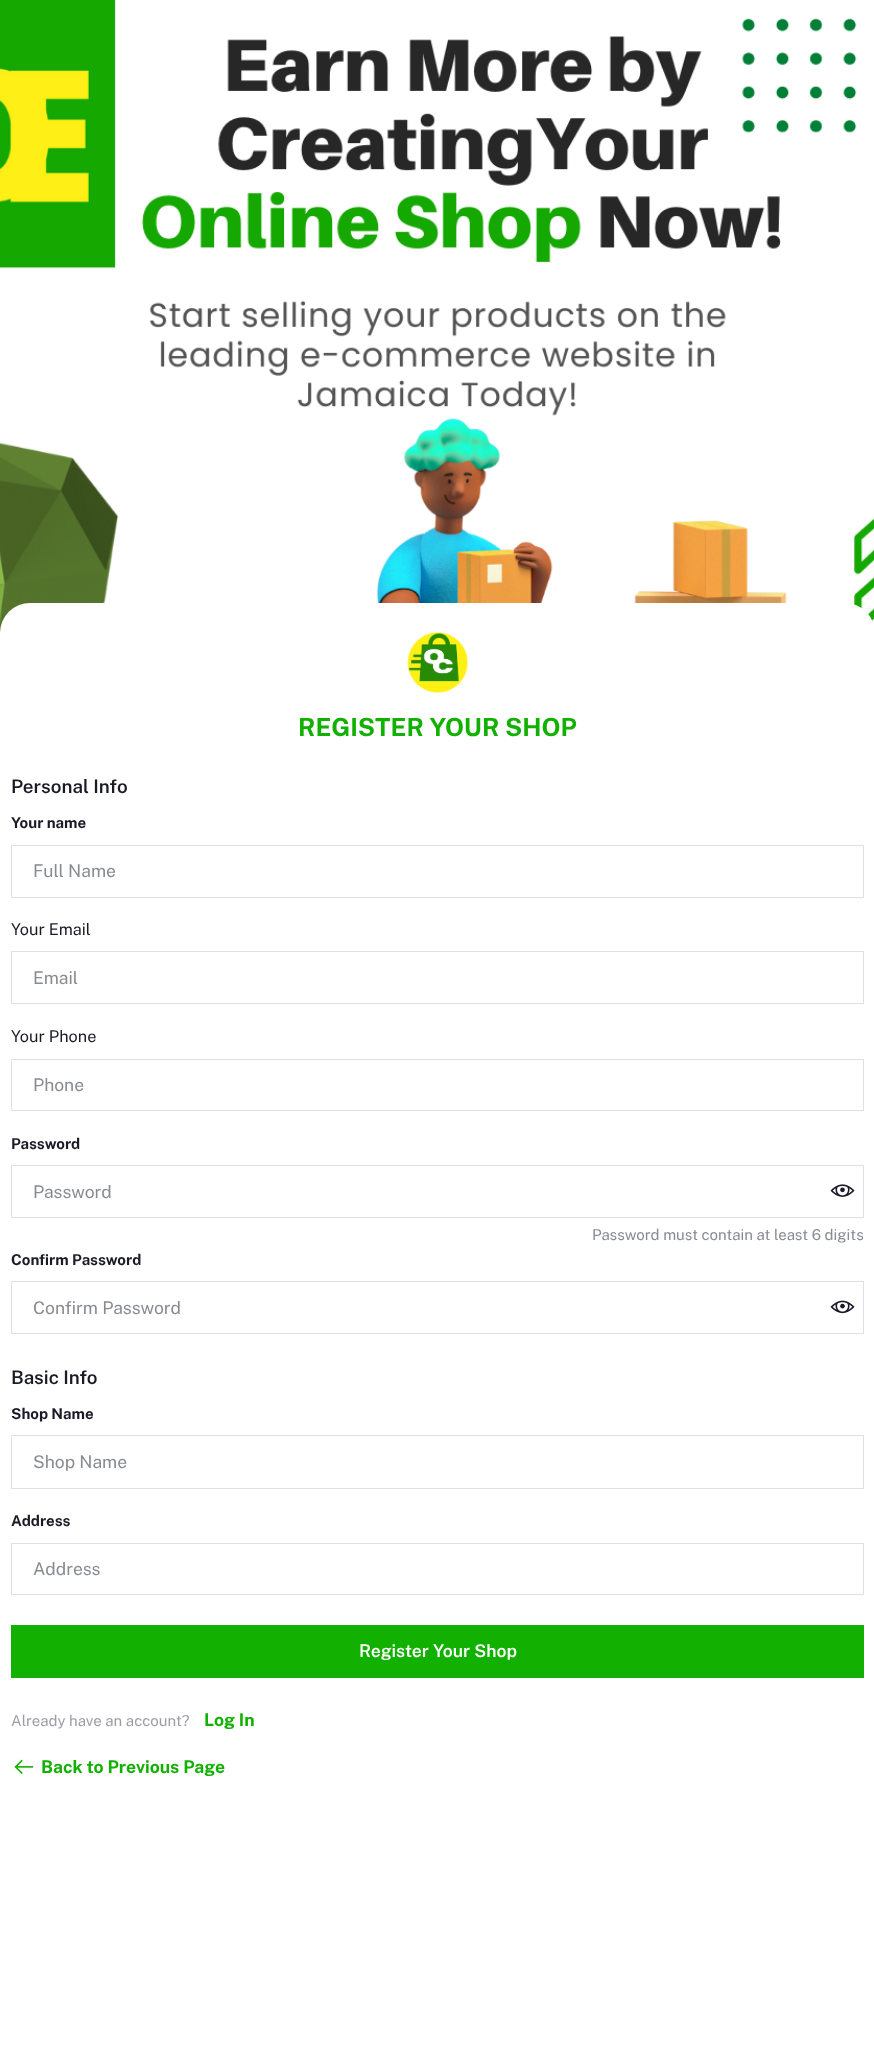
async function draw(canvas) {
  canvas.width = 874
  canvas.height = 2062
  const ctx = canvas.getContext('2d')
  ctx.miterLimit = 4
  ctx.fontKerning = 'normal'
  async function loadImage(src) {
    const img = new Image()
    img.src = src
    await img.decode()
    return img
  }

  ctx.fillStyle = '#fff'
  ctx.fillRect(0, 0, 874, 2062)
  ctx.drawImage(await loadImage('image0.png'), 0, 0, 874, 633)
  ctx.beginPath()
  ctx.roundRect(0, 603, 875, 1207, 30)
  ctx.fill()
  ctx.drawImage(await loadImage('image1.png'), 407, 632, 61, 61)
  ctx.font = 'bold 25px Public Sans'
  ctx.fillStyle = '#12b001'
  ctx.fillText('REGISTER YOUR SHOP', 298, 736)
  ctx.font = '600 18.75px Public Sans'
  ctx.fillStyle = '#1b1b28'
  ctx.fillText('Personal Info', 11, 793)
  ctx.font = 'bold 15px Public Sans'
  ctx.fillText('Your name', 11, 828)
  ctx.strokeStyle = '#dfdfe6'
  ctx.strokeRect(11.5, 845.5, 852, 52)
  ctx.font = '17.5px Public Sans'
  ctx.fillStyle = '#898b92'
  ctx.fillText('Full Name', 33, 877)
  ctx.font = '16.25px Public Sans'
  ctx.fillStyle = '#1b1b28'
  ctx.fillText('Your Email', 11, 935)
  ctx.strokeRect(11.5, 951.5, 852, 52)
  ctx.font = '17.5px Public Sans'
  ctx.fillStyle = '#898b92'
  ctx.fillText('Email', 33, 984)
  ctx.font = '16.25px Public Sans'
  ctx.fillStyle = '#1b1b28'
  ctx.fillText('Your Phone', 11, 1042)
  ctx.strokeRect(11.5, 1059.5, 852, 51)
  ctx.font = '17.5px Public Sans'
  ctx.fillStyle = '#898b92'
  ctx.fillText('Phone', 33, 1091)
  ctx.font = 'bold 15px Public Sans'
  ctx.fillStyle = '#1b1b28'
  ctx.fillText('Password', 11, 1149)
  ctx.strokeRect(11.5, 1165.5, 852, 52)
  ctx.font = '17.5px Public Sans'
  ctx.fillStyle = '#898b92'
  ctx.fillText('Password', 33, 1198)
  ctx.drawImage(await loadImage('image2.png'), 830, 1184, 25, 13)
  ctx.font = '15px Public Sans'
  ctx.fillText('Password must contain at least 6 digits', 592, 1240)
  ctx.font = 'bold 15px Public Sans'
  ctx.fillStyle = '#1b1b28'
  ctx.fillText('Confirm Password', 11, 1265)
  ctx.strokeRect(11.5, 1281.5, 852, 52)
  ctx.font = '17.5px Public Sans'
  ctx.fillStyle = '#898b92'
  ctx.fillText('Confirm Password', 33, 1314)
  ctx.drawImage(await loadImage('image3.png'), 830, 1300, 25, 14)
  ctx.font = '600 18.75px Public Sans'
  ctx.fillStyle = '#1b1b28'
  ctx.fillText('Basic Info', 11, 1384)
  ctx.font = 'bold 15px Public Sans'
  ctx.fillText('Shop Name', 11, 1419)
  ctx.strokeRect(11.5, 1435.5, 852, 53)
  ctx.font = '17.5px Public Sans'
  ctx.fillStyle = '#898b92'
  ctx.fillText('Shop Name', 33, 1468)
  ctx.font = 'bold 15px Public Sans'
  ctx.fillStyle = '#1b1b28'
  ctx.fillText('Address', 11, 1526)
  ctx.strokeRect(11.5, 1543.5, 852, 51)
  ctx.font = '17.5px Public Sans'
  ctx.fillStyle = '#898b92'
  ctx.fillText('Address', 33, 1575)
  ctx.fillStyle = '#12b001'
  ctx.fillRect(11, 1625, 853, 53)
  ctx.font = '600 17.5px Public Sans'
  ctx.fillStyle = '#fff'
  ctx.fillText('Register Your Shop', 359, 1657)
  ctx.font = '15px Public Sans'
  ctx.fillStyle = '#9d9da6'
  ctx.fillText('Already have an account?', 11, 1726)
  ctx.font = 'bold 17.5px Public Sans'
  ctx.fillStyle = '#12b001'
  ctx.fillText('Log In', 204, 1726)
  ctx.drawImage(await loadImage('image4.png'), 14, 1759, 20, 15)
  ctx.fillText('Back to Previous Page', 41, 1773)
}

draw(document.querySelector('canvas'))
